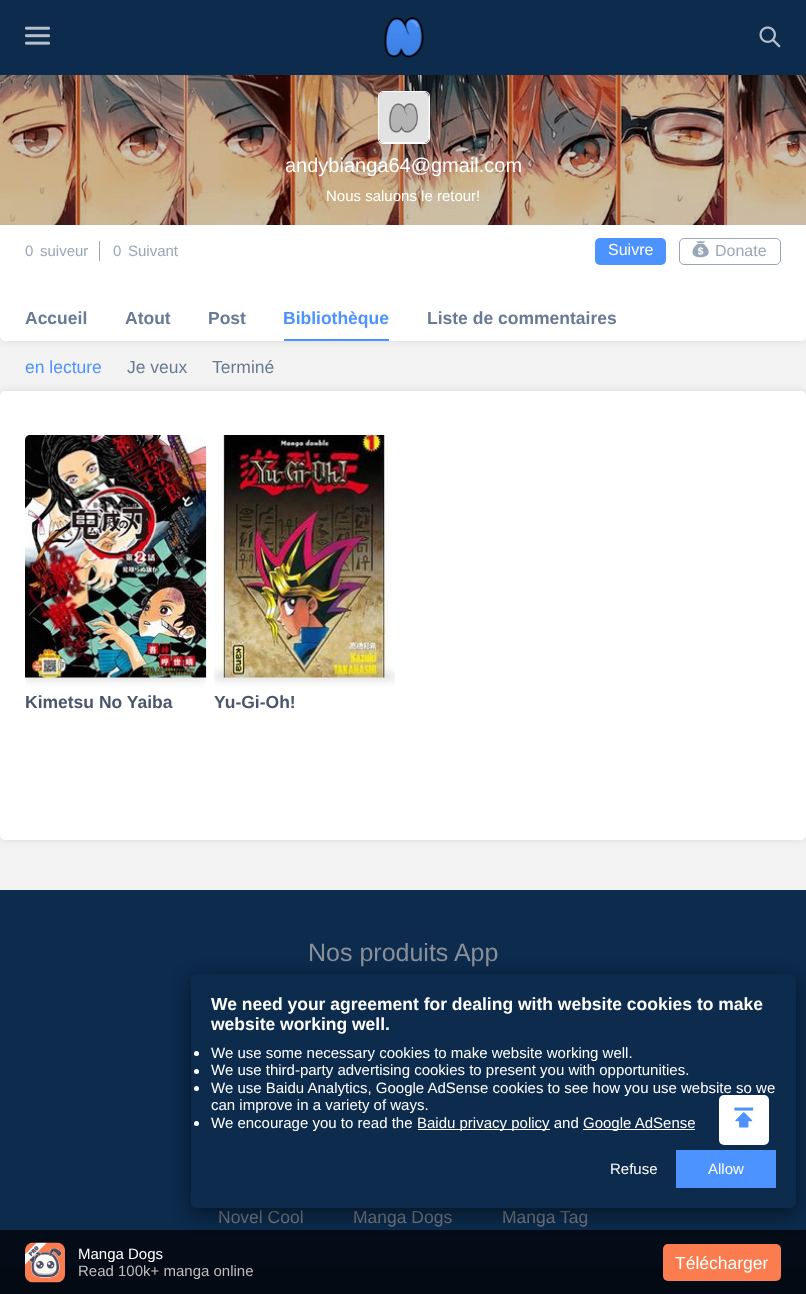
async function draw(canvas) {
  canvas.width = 806
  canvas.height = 1294
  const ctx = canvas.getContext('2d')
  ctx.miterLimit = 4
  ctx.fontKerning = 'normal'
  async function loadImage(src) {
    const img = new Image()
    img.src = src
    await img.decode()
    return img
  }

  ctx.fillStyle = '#f3f3f3'
  ctx.fillRect(0, 0, 806, 1294)
  ctx.fillStyle = '#0000001a'
  ctx.filter = 'blur(4px)'
  ctx.beginPath()
  ctx.roundRect(0, 75, 806, 266, 5)
  ctx.fill()
  ctx.filter = 'none'
  ctx.fillStyle = '#0c2b4d'
  ctx.fillRect(0, 0, 806, 75)
  ctx.drawImage(await loadImage('image0.png'), 25, 26, 25, 19)
  ctx.drawImage(await loadImage('image1.png'), 384, 17, 40, 41)
  ctx.drawImage(await loadImage('image2.png'), 759, 26, 22, 22)
  ctx.fillStyle = '#fff'
  ctx.beginPath()
  ctx.roundRect(0, 75, 806, 266, 5)
  ctx.fill()
  ctx.drawImage(await loadImage('image3.png'), 0, 75, 806, 150)
  ctx.beginPath()
  ctx.roundRect(378.5, 91.5, 51, 52, 4.5)
  ctx.strokeStyle = '#fff'
  ctx.stroke()
  ctx.fillStyle = '#f7faff'
  ctx.beginPath()
  ctx.roundRect(379, 93, 50, 50, 5)
  ctx.fill()
  ctx.drawImage(await loadImage('image4.png'), 379, 92, 50, 50)
  ctx.font = '20px Liberation Sans'
  ctx.fillStyle = '#fff'
  ctx.fillText('andybianga64@gmail.com', 285, 172)
  ctx.font = '15px Liberation Sans'
  ctx.fillText('Nous saluons le retour!', 326, 201)
  ctx.fillStyle = '#9aa6b8'
  ctx.fillText('0', 25, 256)
  ctx.fillText('suiveur', 40, 256)
  ctx.fillRect(99, 241, 1, 20)
  ctx.fillText('0', 113, 256)
  ctx.fillText('Suivant', 128, 256)
  ctx.fillStyle = '#4d93ff'
  ctx.beginPath()
  ctx.roundRect(595, 238, 71, 27, 5)
  ctx.fill()
  ctx.font = '16px Liberation Sans'
  ctx.fillStyle = '#fff'
  ctx.fillText('Suivre', 608, 255)
  ctx.beginPath()
  ctx.roundRect(679.5, 238.5, 101, 26, 4.5)
  ctx.strokeStyle = '#9aa6b8'
  ctx.stroke()
  ctx.drawImage(await loadImage('image5.png'), 692, 241, 17, 17)
  ctx.fillStyle = '#9aa6b8'
  ctx.fillText('Donate', 715, 256)
  ctx.font = 'bold 17.5px Liberation Sans'
  ctx.fillStyle = '#697a94'
  ctx.fillText('Accueil', 25, 324)
  ctx.fillText('Atout', 125, 324)
  ctx.fillText('Post', 208, 324)
  ctx.fillStyle = '#4d93ff'
  ctx.fillRect(284, 339, 105, 2)
  ctx.fillText('Bibliothèque', 283, 324)
  ctx.fillStyle = '#697a94'
  ctx.fillText('Liste de commentaires', 427, 324)
  ctx.font = '17.5px Liberation Sans'
  ctx.fillStyle = '#4d93ff'
  ctx.fillText('en lecture', 25, 373)
  ctx.fillStyle = '#697a94'
  ctx.fillText('Je veux', 127, 373)
  ctx.fillText('Terminé', 212, 373)
  ctx.fillStyle = '#0000001a'
  ctx.filter = 'blur(4px)'
  ctx.beginPath()
  ctx.roundRect(0, 391, 806, 449, 5)
  ctx.fill()
  ctx.filter = 'none'
  ctx.fillStyle = '#fff'
  ctx.beginPath()
  ctx.roundRect(0, 391, 806, 449, 5)
  ctx.fill()
  ctx.drawImage(await loadImage('image6.png'), 25, 435, 182, 243)
  ctx.save()
  ctx.beginPath()
  ctx.roundRect(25, 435, 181, 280, 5)
  ctx.clip()
  ctx.fillStyle = '#000'
  ctx.filter = 'blur(5px)'
  ctx.beginPath()
  ctx.rect(25, 676, 181, 1)
  ctx.fill()
  ctx.filter = 'none'
  ctx.restore()
  ctx.font = 'bold 17.5px Liberation Sans'
  ctx.fillStyle = '#4a576b'
  ctx.fillText('Kimetsu No Yaiba', 25, 708)
  ctx.drawImage(await loadImage('image7.png'), 214, 435, 177, 243)
  ctx.save()
  ctx.beginPath()
  ctx.roundRect(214, 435, 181, 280, 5)
  ctx.clip()
  ctx.fillStyle = '#000'
  ctx.filter = 'blur(5px)'
  ctx.beginPath()
  ctx.rect(214, 676, 181, 1)
  ctx.fill()
  ctx.filter = 'none'
  ctx.restore()
  ctx.fillText('Yu-Gi-Oh!', 214, 708)
  ctx.fillStyle = '#0c2b4d'
  ctx.fillRect(0, 890, 806, 379)
  ctx.font = '25px Liberation Sans'
  ctx.fillStyle = '#8a9099'
  ctx.fillText('Nos produits App', 308, 961)
  ctx.font = '17.5px Liberation Sans'
  ctx.fillStyle = '#737880'
  ctx.fillText('Novel Cool', 218, 1223)
  ctx.fillText('Manga Dogs', 353, 1223)
  ctx.fillText('Manga Tag', 502, 1223)
  ctx.fillStyle = '#00000080'
  ctx.filter = 'blur(9.5px)'
  ctx.beginPath()
  ctx.roundRect(191, 980, 605, 234, 5)
  ctx.fill()
  ctx.filter = 'none'
  ctx.fillStyle = '#0c2b4d'
  ctx.beginPath()
  ctx.roundRect(191, 974, 605, 234, 5)
  ctx.fill()
  ctx.font = 'bold 17.5px Liberation Sans'
  ctx.fillStyle = '#fff'
  ctx.fillText('We need your agreement for dealing with website cookies to make', 211, 1010)
  ctx.fillText('website working well.', 211, 1030)
  ctx.beginPath()
  ctx.arc(196.5, 1053.5, 2.5, 0, 2 * Math.PI)
  ctx.fill()
  ctx.font = '15px Liberation Sans'
  ctx.fillText('We use some necessary cookies to make website working well.', 211, 1058)
  ctx.beginPath()
  ctx.arc(196.5, 1071.5, 2.5, 0, 2 * Math.PI)
  ctx.fill()
  ctx.fillText('We use third-party advertising cookies to present you with opportunities.', 211, 1075)
  ctx.beginPath()
  ctx.arc(196.5, 1088.5, 2.5, 0, 2 * Math.PI)
  ctx.fill()
  ctx.fillText('We use Baidu Analytics, Google AdSense cookies to see how you use website so we', 211, 1093)
  ctx.fillText('can improve in a variety of ways.', 211, 1110)
  ctx.beginPath()
  ctx.arc(196.5, 1123.5, 2.5, 0, 2 * Math.PI)
  ctx.fill()
  ctx.fillText('We encourage you to read the', 211, 1128)
  ctx.fillRect(418, 1129, 132, 1)
  ctx.fillText('Baidu privacy policy and', 417, 1128)
  ctx.fillRect(583, 1129, 112, 1)
  ctx.fillText('Google AdSense', 583, 1128)
  ctx.fillText('Refuse', 610, 1174)
  ctx.fillStyle = '#4d93ff'
  ctx.fillRect(676, 1150, 100, 38)
  ctx.fillStyle = '#fff'
  ctx.fillText('Allow', 708, 1174)
  ctx.beginPath()
  ctx.roundRect(719, 1095, 50, 50, 5)
  ctx.fill()
  ctx.drawImage(await loadImage('image8.png'), 734, 1107, 20, 21)
  ctx.fillStyle = '#0a2440'
  ctx.fillRect(0, 1269, 806, 25)
  ctx.fillStyle = '#000000b3'
  ctx.fillRect(0, 1230, 806, 64)
  ctx.drawImage(await loadImage('image9.png'), 25, 1242, 40, 41)
  ctx.fillStyle = '#fff'
  ctx.fillText('Manga Dogs', 78, 1259)
  ctx.fillStyle = '#bebebe'
  ctx.fillText('Read 100k+ manga online', 78, 1276)
  ctx.fillStyle = '#fb7c4f'
  ctx.beginPath()
  ctx.roundRect(663, 1244, 118, 37, 5)
  ctx.fill()
  ctx.font = '17.5px Liberation Sans'
  ctx.fillStyle = '#fff'
  ctx.fillText('Télécharger', 675, 1269)
}

draw(document.querySelector('canvas'))
